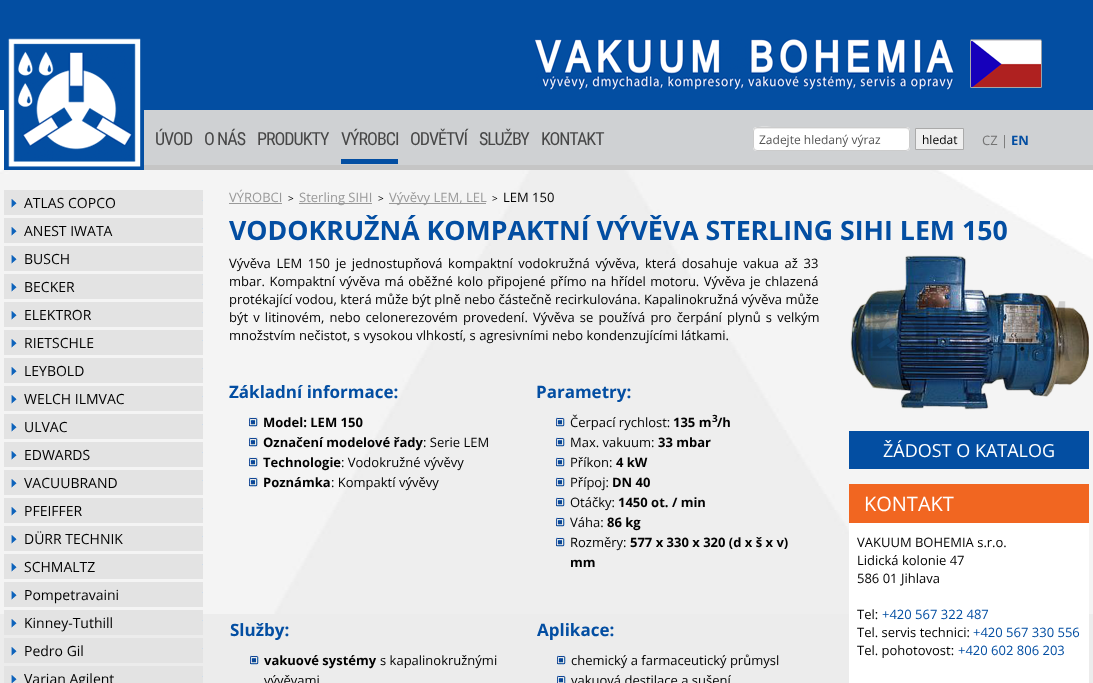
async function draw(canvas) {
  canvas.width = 1093
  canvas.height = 683
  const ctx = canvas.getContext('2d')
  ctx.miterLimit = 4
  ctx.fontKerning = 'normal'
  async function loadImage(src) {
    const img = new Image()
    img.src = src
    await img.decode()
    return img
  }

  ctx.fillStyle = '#ececec'
  ctx.fillRect(0, 0, 1093, 683)
  ctx.fillStyle = '#034ea2'
  ctx.fillRect(0, 0, 1093, 110)
  ctx.drawImage(await loadImage('image0.png'), 535, 39, 507, 51)
  ctx.drawImage(await loadImage('image1.png'), 0, 110, 1093, 504)
  ctx.fillStyle = '#cfd1d3'
  ctx.fillRect(144, 110, 949, 55)
  ctx.fillStyle = '#c5c5c5'
  ctx.fillRect(144, 165, 949, 5)
  ctx.drawImage(await loadImage('image2.png'), 4, 38, 140, 132)
  ctx.letterSpacing = '-1px'
  ctx.font = '18px Roboto Condensed'
  ctx.fillStyle = '#474747'
  ctx.fillText('ÚVOD', 155, 145)
  ctx.fillText('O NÁS', 204, 145)
  ctx.fillText('PRODUKTY', 257, 145)
  ctx.fillText('VÝROBCI', 341, 145)
  ctx.fillStyle = '#034ea2'
  ctx.fillRect(341, 159, 57, 5)
  ctx.fillStyle = '#474747'
  ctx.fillText('ODVĚTVÍ', 410, 145)
  ctx.fillText('SLUŽBY', 479, 145)
  ctx.fillText('KONTAKT', 541, 145)
  ctx.letterSpacing = '0px'
  ctx.font = '13px Open Sans'
  ctx.fillStyle = '#737373'
  ctx.fillText('CZ |', 982, 145)
  ctx.font = 'bold 13px Open Sans'
  ctx.fillStyle = '#034ea2'
  ctx.fillText('EN', 1011, 145)
  ctx.fillStyle = '#fff'
  ctx.beginPath()
  ctx.roundRect(753, 127, 157, 24, 4)
  ctx.fill()
  ctx.fillStyle = '#ececec'
  ctx.beginPath()
  ctx.moveTo(757, 129)
  ctx.lineTo(906, 129)
  ctx.bezierCurveTo(908, 129, 909, 130, 909, 132)
  ctx.bezierCurveTo(909, 130, 909, 129, 907, 128)
  ctx.lineTo(782, 128)
  ctx.bezierCurveTo(774, 128, 754, 123, 754, 132)
  ctx.bezierCurveTo(754, 130, 755, 129, 757, 129)
  ctx.closePath()
  ctx.fill()
  ctx.beginPath()
  ctx.roundRect(753.5, 127.5, 156, 23, 3.5)
  ctx.strokeStyle = '#ccc'
  ctx.stroke()
  ctx.font = '12px Open Sans'
  ctx.fillStyle = '#555'
  ctx.fillText('Zadejte hledaný výraz', 759, 144)
  ctx.fillStyle = '#efefef'
  ctx.beginPath()
  ctx.rect(915.5, 128.5, 48, 21)
  ctx.fill()
  ctx.strokeStyle = '#aaa'
  ctx.stroke()
  ctx.fillStyle = '#000'
  ctx.fillText('hledat', 922, 144)
  ctx.fillStyle = '#e3e3e3'
  ctx.fillRect(4, 190, 199, 25)
  ctx.drawImage(await loadImage('image3.png'), 11, 199, 192, 9)
  ctx.font = '14px Open Sans'
  ctx.fillStyle = '#000'
  ctx.fillText('ATLAS COPCO', 24, 208)
  ctx.fillStyle = '#e3e3e3'
  ctx.fillRect(4, 218, 199, 25)
  ctx.drawImage(await loadImage('image3.png'), 11, 227, 192, 9)
  ctx.fillStyle = '#000'
  ctx.fillText('ANEST IWATA', 24, 236)
  ctx.fillStyle = '#e3e3e3'
  ctx.fillRect(4, 246, 199, 25)
  ctx.drawImage(await loadImage('image3.png'), 11, 255, 192, 9)
  ctx.fillStyle = '#000'
  ctx.fillText('BUSCH', 24, 264)
  ctx.fillStyle = '#e3e3e3'
  ctx.fillRect(4, 274, 199, 25)
  ctx.drawImage(await loadImage('image3.png'), 11, 283, 192, 9)
  ctx.fillStyle = '#000'
  ctx.fillText('BECKER', 24, 292)
  ctx.fillStyle = '#e3e3e3'
  ctx.fillRect(4, 302, 199, 25)
  ctx.drawImage(await loadImage('image3.png'), 11, 311, 192, 9)
  ctx.fillStyle = '#000'
  ctx.fillText('ELEKTROR', 24, 320)
  ctx.fillStyle = '#e3e3e3'
  ctx.fillRect(4, 330, 199, 25)
  ctx.drawImage(await loadImage('image3.png'), 11, 339, 192, 9)
  ctx.fillStyle = '#000'
  ctx.fillText('RIETSCHLE', 24, 348)
  ctx.fillStyle = '#e3e3e3'
  ctx.fillRect(4, 358, 199, 25)
  ctx.drawImage(await loadImage('image3.png'), 11, 367, 192, 9)
  ctx.fillStyle = '#000'
  ctx.fillText('LEYBOLD', 24, 376)
  ctx.fillStyle = '#e3e3e3'
  ctx.fillRect(4, 386, 199, 25)
  ctx.drawImage(await loadImage('image3.png'), 11, 395, 192, 9)
  ctx.fillStyle = '#000'
  ctx.fillText('WELCH ILMVAC', 24, 404)
  ctx.fillStyle = '#e3e3e3'
  ctx.fillRect(4, 414, 199, 25)
  ctx.drawImage(await loadImage('image3.png'), 11, 423, 192, 9)
  ctx.fillStyle = '#000'
  ctx.fillText('ULVAC', 24, 432)
  ctx.fillStyle = '#e3e3e3'
  ctx.fillRect(4, 442, 199, 25)
  ctx.drawImage(await loadImage('image3.png'), 11, 451, 192, 9)
  ctx.fillStyle = '#000'
  ctx.fillText('EDWARDS', 24, 460)
  ctx.fillStyle = '#e3e3e3'
  ctx.fillRect(4, 470, 199, 25)
  ctx.drawImage(await loadImage('image3.png'), 11, 479, 192, 9)
  ctx.fillStyle = '#000'
  ctx.fillText('VACUUBRAND', 24, 488)
  ctx.fillStyle = '#e3e3e3'
  ctx.fillRect(4, 498, 199, 25)
  ctx.drawImage(await loadImage('image3.png'), 11, 507, 192, 9)
  ctx.fillStyle = '#000'
  ctx.fillText('PFEIFFER', 24, 516)
  ctx.fillStyle = '#e3e3e3'
  ctx.fillRect(4, 526, 199, 25)
  ctx.drawImage(await loadImage('image3.png'), 11, 535, 192, 9)
  ctx.fillStyle = '#000'
  ctx.fillText('DÜRR TECHNIK', 24, 544)
  ctx.fillStyle = '#e3e3e3'
  ctx.fillRect(4, 554, 199, 25)
  ctx.drawImage(await loadImage('image3.png'), 11, 563, 192, 9)
  ctx.fillStyle = '#000'
  ctx.fillText('SCHMALTZ', 24, 572)
  ctx.fillStyle = '#e3e3e3'
  ctx.fillRect(4, 582, 199, 25)
  ctx.drawImage(await loadImage('image3.png'), 11, 591, 192, 9)
  ctx.fillStyle = '#000'
  ctx.fillText('Pompetravaini', 24, 600)
  ctx.fillStyle = '#e3e3e3'
  ctx.fillRect(4, 610, 199, 25)
  ctx.drawImage(await loadImage('image3.png'), 11, 619, 192, 9)
  ctx.fillStyle = '#000'
  ctx.fillText('Kinney-Tuthill', 24, 628)
  ctx.fillStyle = '#e3e3e3'
  ctx.fillRect(4, 638, 199, 25)
  ctx.drawImage(await loadImage('image3.png'), 11, 647, 192, 9)
  ctx.fillStyle = '#000'
  ctx.fillText('Pedro Gil', 24, 656)
  ctx.fillStyle = '#e3e3e3'
  ctx.fillRect(4, 666, 199, 17)
  ctx.drawImage(await loadImage('image4.png'), 11, 675, 192, 8)
  ctx.fillStyle = '#000'
  ctx.fillText('Varian Agilent', 24, 684)
  ctx.font = '13px Open Sans'
  ctx.fillStyle = '#999'
  ctx.fillText('VÝROBCI', 229, 202)
  ctx.fillRect(229, 203, 53, 1)
  ctx.font = '10px Open Sans'
  ctx.fillStyle = '#000'
  ctx.fillText('>', 288, 202)
  ctx.fillStyle = '#999'
  ctx.fillRect(299, 203, 73, 1)
  ctx.font = '13px Open Sans'
  ctx.fillText('Sterling SIHI', 299, 202)
  ctx.font = '10px Open Sans'
  ctx.fillStyle = '#000'
  ctx.fillText('>', 378, 202)
  ctx.fillStyle = '#999'
  ctx.fillRect(389, 203, 97, 1)
  ctx.font = '13px Open Sans'
  ctx.fillText('Vývěvy LEM, LEL', 389, 202)
  ctx.font = '10px Open Sans'
  ctx.fillStyle = '#000'
  ctx.fillText('>', 492, 202)
  ctx.font = '13px Open Sans'
  ctx.fillText('LEM 150', 503, 202)
  ctx.font = 'bold 26.7px Open Sans'
  ctx.fillStyle = '#034ea2'
  ctx.fillText('VODOKRUŽNÁ KOMPAKTNÍ VÝVĚVA STERLING SIHI LEM 150', 229, 240)
  ctx.wordSpacing = '2.25px'
  ctx.font = '13px Open Sans'
  ctx.fillStyle = '#000'
  ctx.fillText('Vývěva LEM 150 je jednostupňová kompaktní vodokružná vývěva, která dosahuje vakua až 33', 229, 268)
  ctx.wordSpacing = '1.1px'
  ctx.fillText('mbar. Kompaktní vývěva má oběžné kolo připojené přímo na hřídel motoru. Vývěva je chlazená', 229, 286)
  ctx.wordSpacing = '0px'
  ctx.fillText('protékající vodou, která může být plně nebo částečně recirkulována. Kapalinokružná vývěva může', 229, 304)
  ctx.wordSpacing = '1.75px'
  ctx.fillText('být v litinovém, nebo celonerezovém provedení. Vývěva se používá pro čerpání plynů s velkým', 229, 322)
  ctx.wordSpacing = '0px'
  ctx.fillText('množstvím nečistot, s vysokou vlhkostí, s agresivními nebo kondenzujícími látkami.', 229, 340)
  ctx.font = 'bold 17px Open Sans'
  ctx.fillStyle = '#034ea2'
  ctx.fillText('Základní informace:', 229, 398)
  ctx.drawImage(await loadImage('image5.png'), 249, 417, 9, 10)
  ctx.font = 'bold 13px Open Sans'
  ctx.fillStyle = '#000'
  ctx.fillText('Model: LEM 150', 263, 427)
  ctx.drawImage(await loadImage('image5.png'), 249, 437, 9, 10)
  ctx.fillText('Označení modelové řady', 263, 447)
  ctx.font = '13px Open Sans'
  ctx.fillText(': Serie LEM', 423, 447)
  ctx.drawImage(await loadImage('image5.png'), 249, 457, 9, 10)
  ctx.font = 'bold 13px Open Sans'
  ctx.fillText('Technologie', 263, 467)
  ctx.font = '13px Open Sans'
  ctx.fillText(': Vodokružné vývěvy', 341, 467)
  ctx.drawImage(await loadImage('image5.png'), 249, 477, 9, 10)
  ctx.font = 'bold 13px Open Sans'
  ctx.fillText('Poznámka', 263, 487)
  ctx.font = '13px Open Sans'
  ctx.fillText(': Kompaktí vývěvy', 331, 487)
  ctx.font = 'bold 17px Open Sans'
  ctx.fillStyle = '#034ea2'
  ctx.fillText('Parametry:', 536, 398)
  ctx.drawImage(await loadImage('image5.png'), 556, 417, 9, 10)
  ctx.font = '13px Open Sans'
  ctx.fillStyle = '#000'
  ctx.fillText('Čerpací rychlost:', 570, 427)
  ctx.font = 'bold 13px Open Sans'
  ctx.fillText('135 m', 673, 427)
  ctx.fillText('/h', 717, 427)
  ctx.font = 'bold 10px Open Sans'
  ctx.fillText('3', 712, 422)
  ctx.drawImage(await loadImage('image5.png'), 556, 437, 9, 10)
  ctx.font = '13px Open Sans'
  ctx.fillText('Max. vakuum:', 570, 447)
  ctx.font = 'bold 13px Open Sans'
  ctx.fillText('33 mbar', 658, 447)
  ctx.drawImage(await loadImage('image5.png'), 556, 457, 9, 10)
  ctx.font = '13px Open Sans'
  ctx.fillText('Příkon:', 570, 467)
  ctx.font = 'bold 13px Open Sans'
  ctx.fillText('4 kW', 616, 467)
  ctx.drawImage(await loadImage('image5.png'), 556, 477, 9, 10)
  ctx.font = '13px Open Sans'
  ctx.fillText('Přípoj:', 570, 487)
  ctx.font = 'bold 13px Open Sans'
  ctx.fillText('DN 40', 612, 487)
  ctx.drawImage(await loadImage('image5.png'), 556, 497, 9, 10)
  ctx.font = '13px Open Sans'
  ctx.fillText('Otáčky:', 570, 507)
  ctx.font = 'bold 13px Open Sans'
  ctx.fillText('1450 ot. / min', 618, 507)
  ctx.drawImage(await loadImage('image5.png'), 556, 517, 9, 10)
  ctx.font = '13px Open Sans'
  ctx.fillText('Váha:', 570, 527)
  ctx.font = 'bold 13px Open Sans'
  ctx.fillText('86 kg', 607, 527)
  ctx.drawImage(await loadImage('image5.png'), 556, 537, 9, 10)
  ctx.font = '13px Open Sans'
  ctx.fillText('Rozměry:', 570, 547)
  ctx.font = 'bold 13px Open Sans'
  ctx.fillText('577 x 330 x 320 (d x š x v)', 630, 547)
  ctx.fillText('mm', 570, 567)
  ctx.font = 'bold 17px Open Sans'
  ctx.fillStyle = '#034ea2'
  ctx.fillText('Služby:', 230, 636)
  ctx.drawImage(await loadImage('image5.png'), 250, 655, 9, 10)
  ctx.font = 'bold 13px Open Sans'
  ctx.fillStyle = '#000'
  ctx.fillText('vakuové systémy', 264, 665)
  ctx.font = '13px Open Sans'
  ctx.fillText('s kapalinokružnými', 380, 665)
  ctx.fillText('vývěvami', 264, 685)
  ctx.font = 'bold 17px Open Sans'
  ctx.fillStyle = '#034ea2'
  ctx.fillText('Aplikace:', 537, 636)
  ctx.drawImage(await loadImage('image5.png'), 557, 655, 9, 10)
  ctx.font = '13px Open Sans'
  ctx.fillStyle = '#000'
  ctx.fillText('chemický a farmaceutický průmysl', 571, 665)
  ctx.drawImage(await loadImage('image6.png'), 557, 675, 9, 8)
  ctx.fillText('vakuová destilace a sušení', 571, 685)
  ctx.drawImage(await loadImage('image7.png'), 850, 255, 239, 155)
  ctx.fillStyle = '#034ea2'
  ctx.fillRect(849, 431, 240, 38)
  ctx.font = '18px Open Sans'
  ctx.fillStyle = '#fff'
  ctx.fillText('ŽÁDOST O KATALOG', 883, 457)
  ctx.fillRect(849, 523, 240, 160)
  ctx.fillStyle = '#f16621'
  ctx.fillRect(849, 484, 240, 39)
  ctx.font = '20px Open Sans'
  ctx.fillStyle = '#fff'
  ctx.fillText('KONTAKT', 864, 511)
  ctx.font = '13px Open Sans'
  ctx.fillStyle = '#000'
  ctx.fillText('VAKUUM BOHEMIA s.r.o.', 857, 547)
  ctx.fillText('Lidická kolonie 47', 857, 565)
  ctx.fillText('586 01 Jihlava', 857, 583)
  ctx.fillText('Tel:', 857, 619)
  ctx.fillStyle = '#034ea2'
  ctx.fillText('+420 567 322 487', 882, 619)
  ctx.fillStyle = '#000'
  ctx.fillText('Tel. servis technici:', 857, 637)
  ctx.fillStyle = '#034ea2'
  ctx.fillText('+420 567 330 556', 973, 637)
  ctx.fillStyle = '#000'
  ctx.fillText('Tel. pohotovost:', 857, 655)
  ctx.fillStyle = '#034ea2'
  ctx.fillText('+420 602 806 203', 958, 655)
}

draw(document.querySelector('canvas'))
